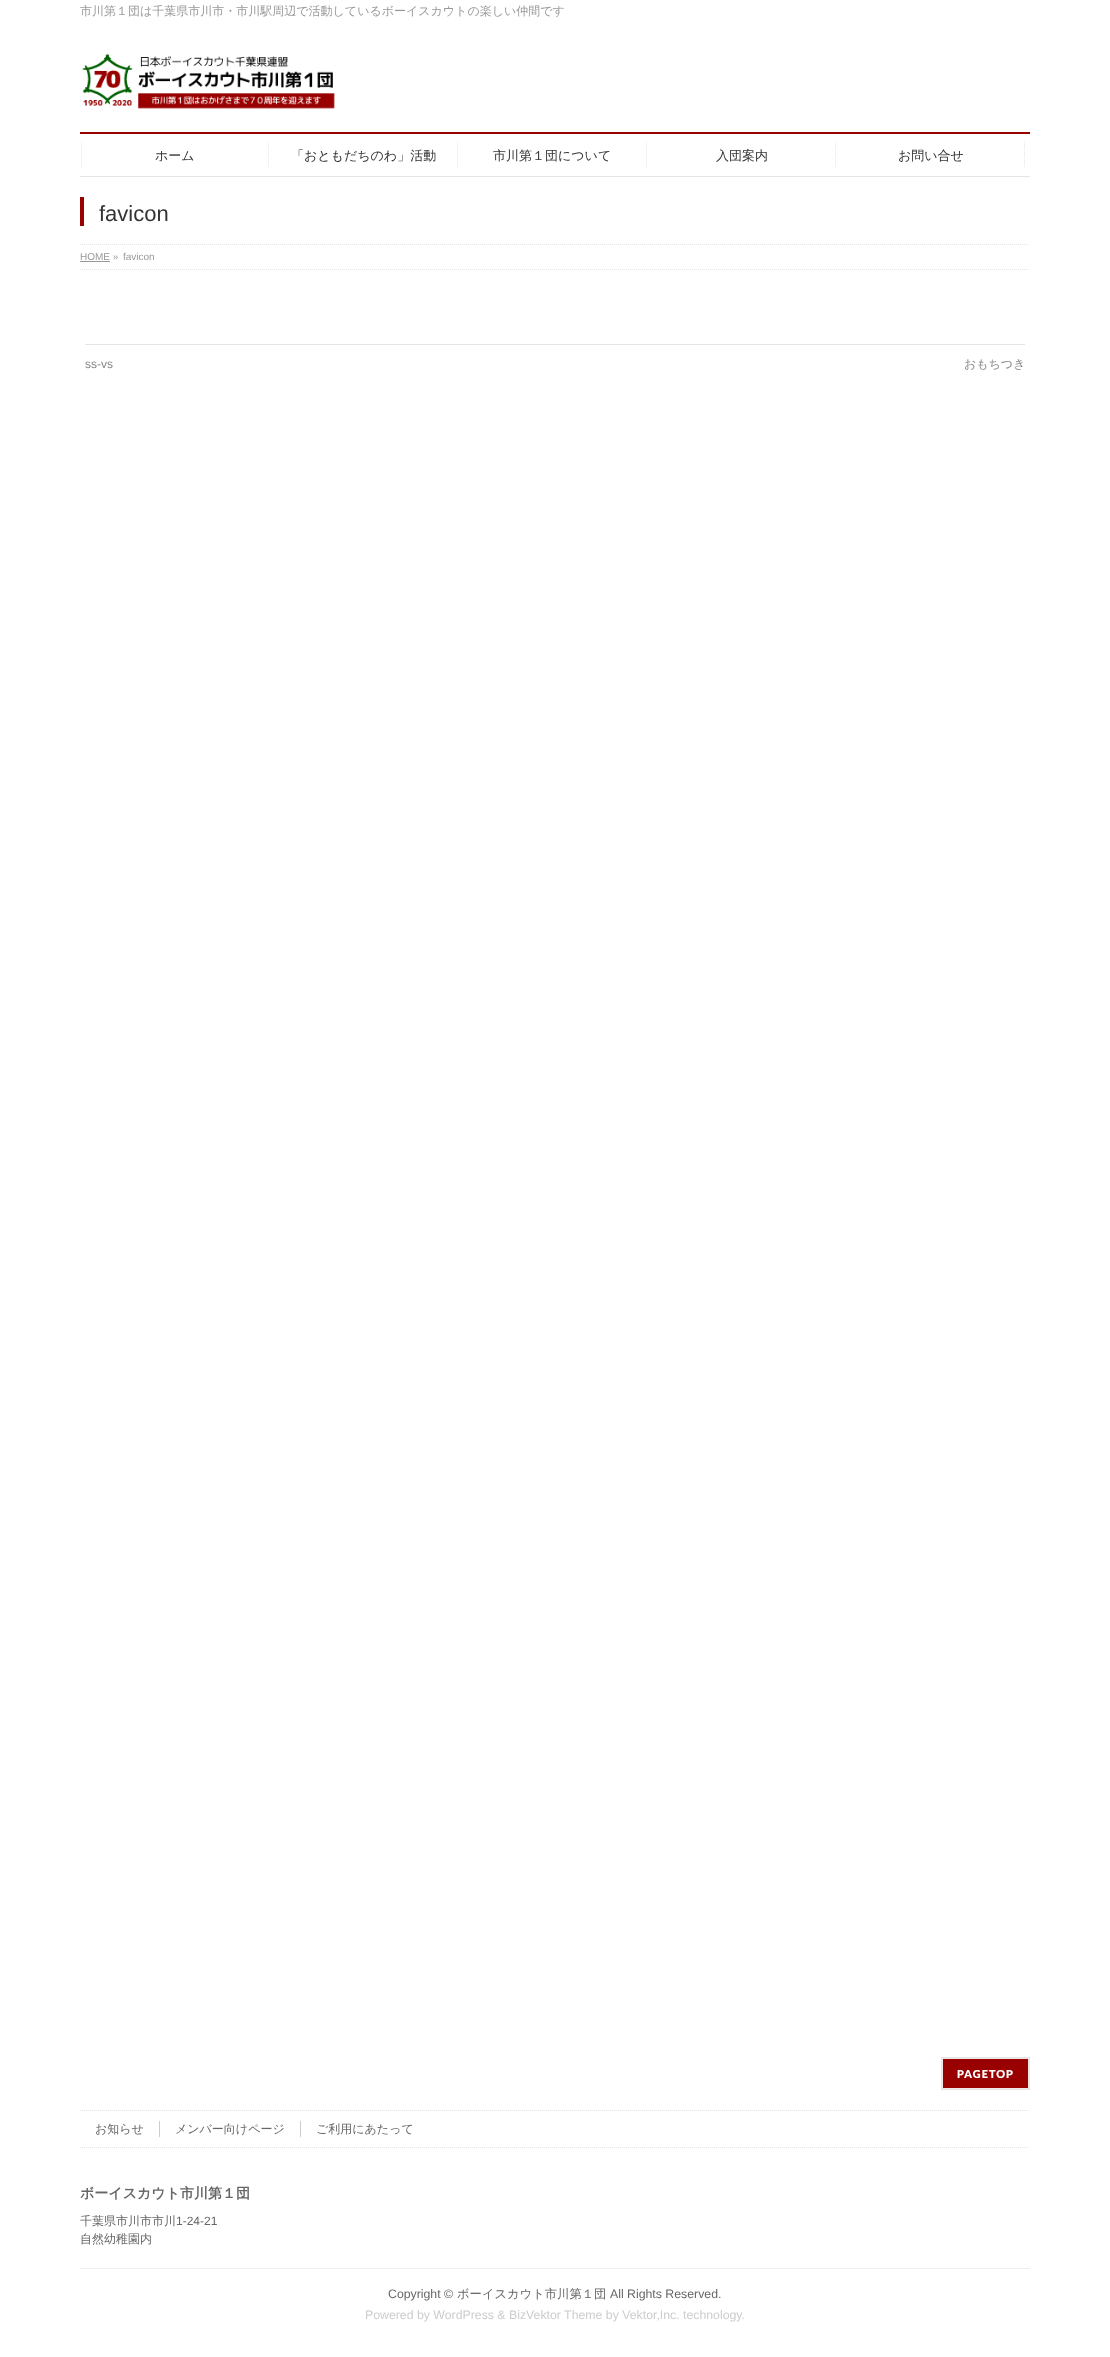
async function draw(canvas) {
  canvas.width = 1110
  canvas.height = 2357
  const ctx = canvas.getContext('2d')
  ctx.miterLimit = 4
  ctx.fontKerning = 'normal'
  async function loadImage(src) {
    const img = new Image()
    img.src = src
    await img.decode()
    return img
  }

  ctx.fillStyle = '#fff'
  ctx.fillRect(0, 0, 1110, 2357)
  ctx.font = '500 12px WenQuanYi Zen Hei'
  ctx.fillStyle = '#999'
  ctx.fillText('市川第１団は千葉県市川市・市川駅周辺で活動しているボーイスカウトの楽しい仲間です', 80, 15)
  ctx.drawImage(await loadImage('image0.png'), 82, 53, 253, 56)
  ctx.fillStyle = '#900'
  ctx.fillRect(80, 132, 950, 2)
  ctx.fillStyle = '#e5e5e5'
  ctx.fillRect(80, 176, 950, 1)
  ctx.beginPath()
  ctx.moveTo(81.5, 142)
  ctx.lineTo(81.5, 168)
  ctx.strokeStyle = '#e5e5e5'
  ctx.setLineDash([1, 1])
  ctx.stroke()
  ctx.font = '500 13px WenQuanYi Zen Hei'
  ctx.fillStyle = '#333'
  ctx.fillText('ホーム', 155, 160)
  ctx.beginPath()
  ctx.moveTo(268.5, 142)
  ctx.lineTo(268.5, 168)
  ctx.stroke()
  ctx.fillText('「おともだちのわ」活動', 291, 160)
  ctx.beginPath()
  ctx.moveTo(457.5, 142)
  ctx.lineTo(457.5, 168)
  ctx.stroke()
  ctx.fillText('市川第１団について', 493, 160)
  ctx.beginPath()
  ctx.moveTo(646.5, 142)
  ctx.lineTo(646.5, 168)
  ctx.stroke()
  ctx.fillText('入団案内', 716, 160)
  ctx.beginPath()
  ctx.moveTo(835.5, 142)
  ctx.lineTo(835.5, 168)
  ctx.stroke()
  ctx.fillText('お問い合せ', 898, 160)
  ctx.beginPath()
  ctx.moveTo(1024.5, 142)
  ctx.lineTo(1024.5, 168)
  ctx.stroke()
  ctx.fillStyle = '#900'
  ctx.fillRect(80, 197, 4, 29)
  ctx.font = '22px Liberation Sans'
  ctx.fillStyle = '#333'
  ctx.fillText('favicon', 99, 221)
  ctx.beginPath()
  ctx.moveTo(80, 244.5)
  ctx.lineTo(1030, 244.5)
  ctx.stroke()
  ctx.beginPath()
  ctx.moveTo(80, 269.5)
  ctx.lineTo(1030, 269.5)
  ctx.stroke()
  ctx.font = '10px Liberation Sans'
  ctx.fillStyle = '#999'
  ctx.fillText('HOME »', 80, 260)
  ctx.fillRect(80, 261, 30, 1)
  ctx.fillText('favicon', 123, 260)
  ctx.fillStyle = '#e5e5e5'
  ctx.fillRect(85, 344, 940, 1)
  ctx.font = '12px Liberation Sans'
  ctx.fillStyle = '#888'
  ctx.fillText('ss-vs', 85, 368)
  ctx.font = '500 12px WenQuanYi Zen Hei'
  ctx.fillText('おもちつき', 964, 368)
  ctx.fillStyle = '#900'
  ctx.beginPath()
  ctx.rect(942.5, 2058.5, 86, 30)
  ctx.fill()
  ctx.strokeStyle = '#f5e6e6'
  ctx.setLineDash([])
  ctx.stroke()
  ctx.strokeStyle = '#e5e5e5'
  ctx.strokeRect(941.5, 2057.5, 88, 32)
  ctx.letterSpacing = '1px'
  ctx.font = '900 11px Lato'
  ctx.fillStyle = '#fff'
  ctx.fillText('PAGETOP', 957, 2078)
  ctx.beginPath()
  ctx.moveTo(80, 2110.5)
  ctx.lineTo(1030, 2110.5)
  ctx.setLineDash([1, 1])
  ctx.stroke()
  ctx.beginPath()
  ctx.moveTo(80, 2147.5)
  ctx.lineTo(1030, 2147.5)
  ctx.stroke()
  ctx.fillStyle = '#ccc'
  ctx.fillRect(159, 2121, 1, 16)
  ctx.letterSpacing = '0px'
  ctx.font = '500 12px WenQuanYi Zen Hei'
  ctx.fillStyle = '#666'
  ctx.fillText('お知らせ', 95, 2133)
  ctx.fillStyle = '#ccc'
  ctx.fillRect(300, 2121, 1, 16)
  ctx.fillStyle = '#666'
  ctx.fillText('メンバー向けページ', 175, 2133)
  ctx.fillText('ご利用にあたって', 316, 2133)
  ctx.font = 'bold 14px WenQuanYi Zen Hei'
  ctx.fillText('ボーイスカウト市川第１団', 80, 2198)
  ctx.font = '500 12px WenQuanYi Zen Hei'
  ctx.fillText('千葉県市川市市川', 80, 2225)
  ctx.font = '12px Liberation Sans'
  ctx.fillText('1-24-21', 176, 2225)
  ctx.font = '500 12px WenQuanYi Zen Hei'
  ctx.fillText('自然幼稚園内', 80, 2243)
  ctx.fillStyle = '#efefef'
  ctx.fillRect(80, 2268, 950, 1)
  ctx.font = '12.3px Liberation Sans'
  ctx.fillStyle = '#666'
  ctx.fillText('Copyright ©', 388, 2298)
  ctx.font = '500 12.3px WenQuanYi Zen Hei'
  ctx.fillText('ボーイスカウト市川第１団', 457, 2298)
  ctx.font = '12.3px Liberation Sans'
  ctx.fillText('All Rights Reserved.', 610, 2298)
  ctx.fillStyle = '#ccc'
  ctx.fillText('Powered by WordPress & BizVektor Theme by Vektor,Inc. technology.', 365, 2319)
}

draw(document.querySelector('canvas'))
